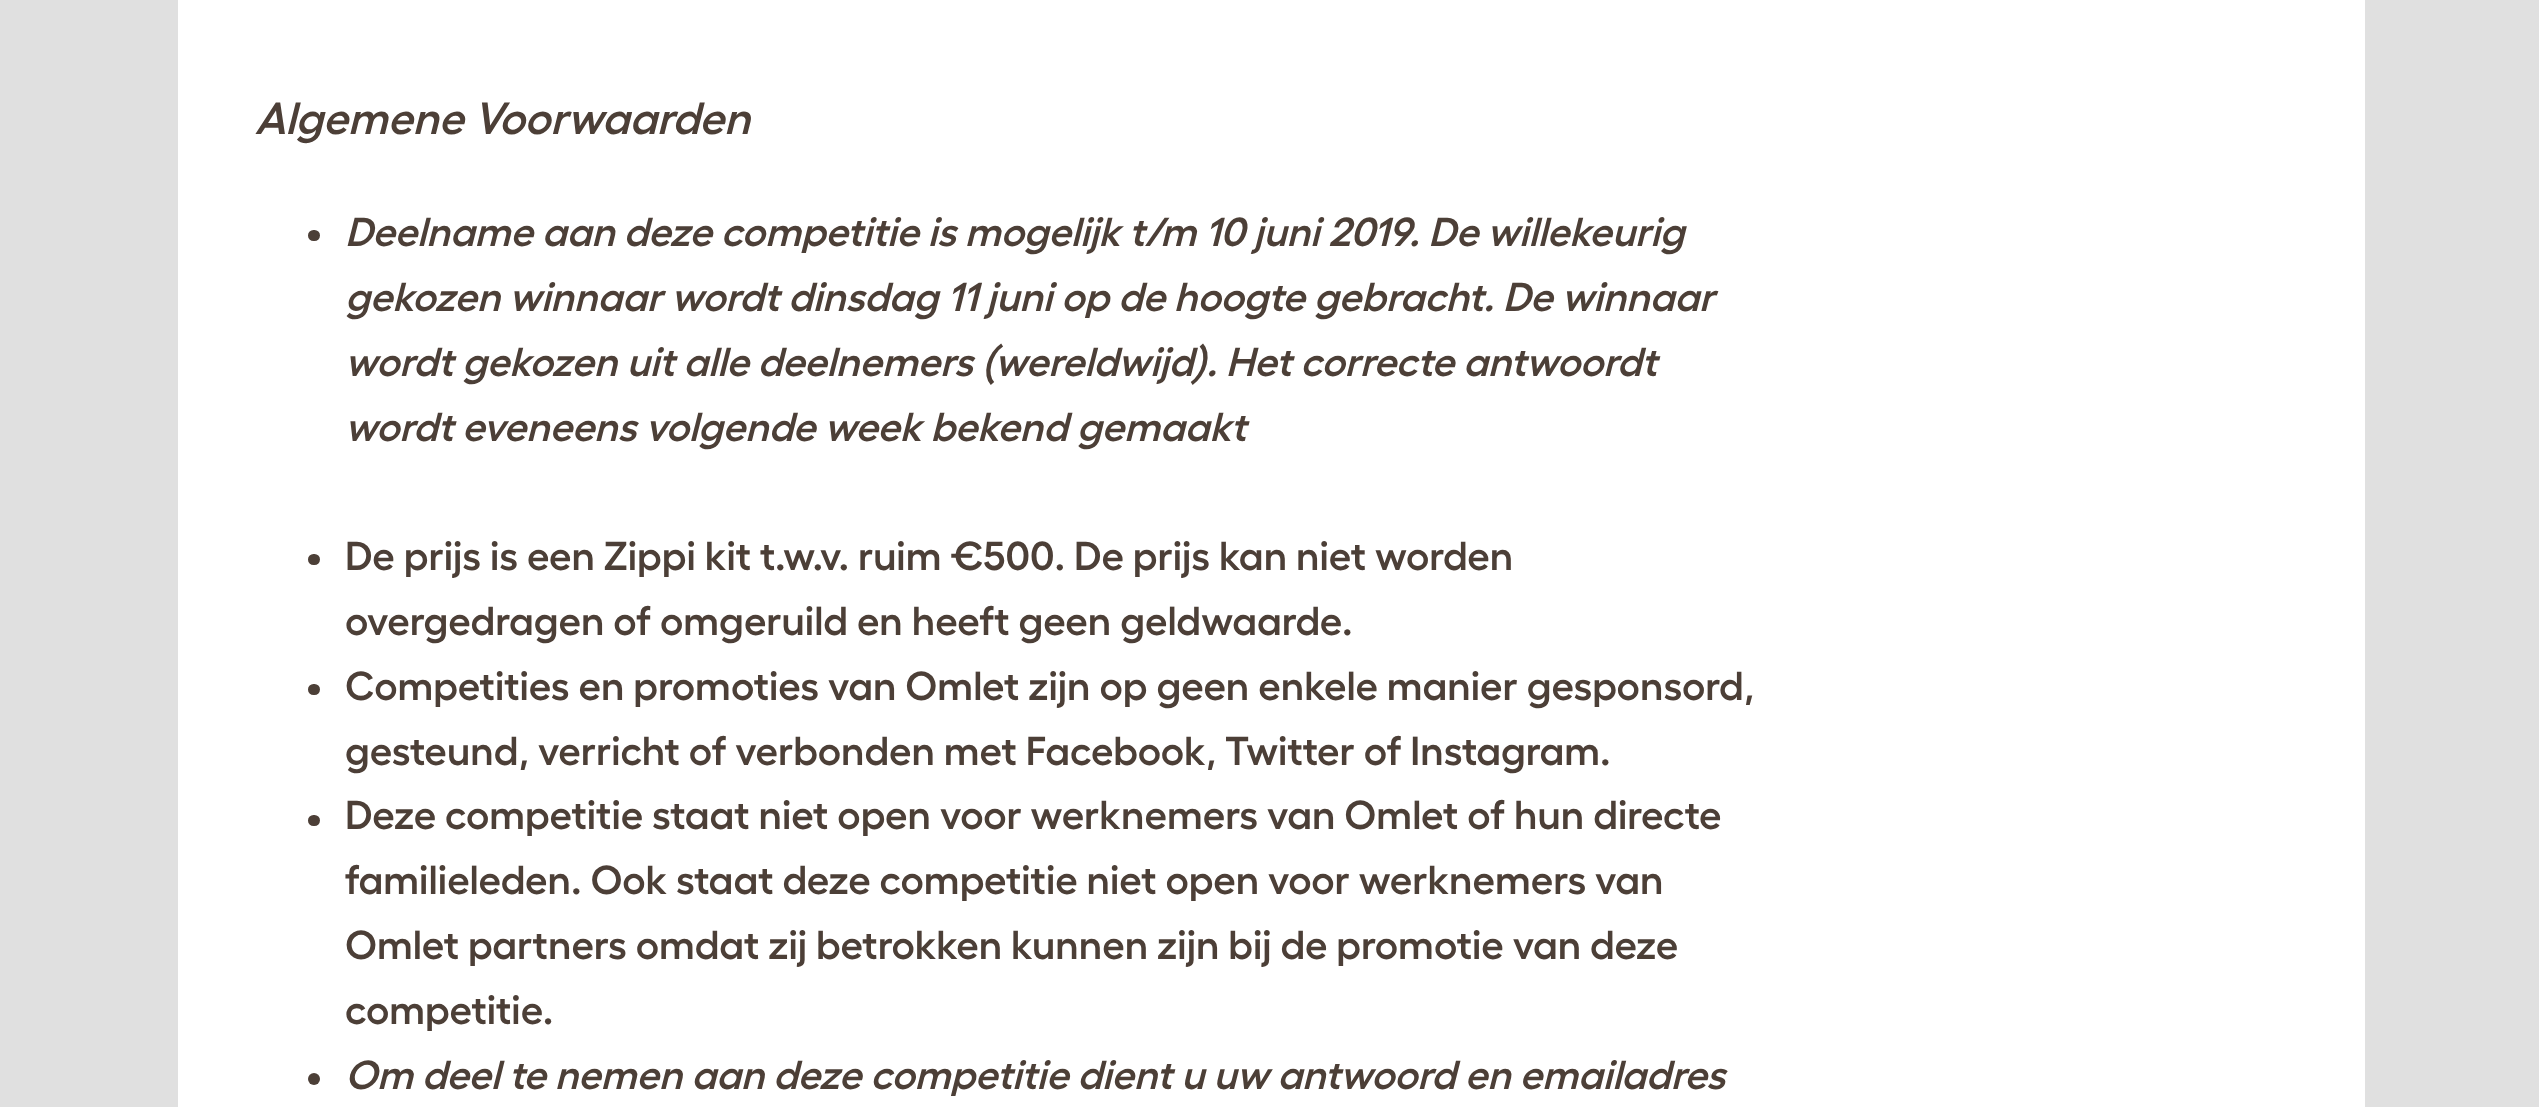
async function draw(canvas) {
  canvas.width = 2539
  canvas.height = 1107
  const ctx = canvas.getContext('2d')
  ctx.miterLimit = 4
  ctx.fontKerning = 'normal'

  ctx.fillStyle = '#e0e0e0'
  ctx.fillRect(0, 0, 2539, 1107)
  ctx.fillStyle = '#fff'
  ctx.fillRect(178, 0, 2187, 1107)
  ctx.font = 'italic 600 45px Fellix'
  ctx.fillStyle = '#4c3f37'
  ctx.fillText('Algemene Voorwaarden', 255, 134)
  ctx.beginPath()
  ctx.roundRect(308, 230, 12, 11, 5.5)
  ctx.fill()
  ctx.font = 'italic 600 40.5px Fellix'
  ctx.fillText('Deelname aan deze competitie is mogelijk t/m 10 juni 2019. De willekeurig', 345, 246)
  ctx.fillText('gekozen winnaar wordt dinsdag 11 juni op de hoogte gebracht. De winnaar', 345, 311)
  ctx.fillText('wordt gekozen uit alle deelnemers (wereldwijd). Het correcte antwoordt', 345, 376)
  ctx.fillText('wordt eveneens volgende week bekend gemaakt', 345, 441)
  ctx.beginPath()
  ctx.roundRect(308, 554, 12, 11, 5.5)
  ctx.fill()
  ctx.font = '600 40.5px Fellix'
  ctx.fillText('De prijs is een Zippi kit t.w.v. ruim €500. De prijs kan niet worden', 345, 570)
  ctx.fillText('overgedragen of omgeruild en heeft geen geldwaarde.', 345, 635)
  ctx.beginPath()
  ctx.roundRect(308, 684, 12, 11, 5.5)
  ctx.fill()
  ctx.fillText('Competities en promoties van Omlet zijn op geen enkele manier gesponsord,', 345, 700)
  ctx.fillText('gesteund, verricht of verbonden met Facebook, Twitter of Instagram.', 345, 765)
  ctx.beginPath()
  ctx.roundRect(308, 815, 12, 11, 5.5)
  ctx.fill()
  ctx.fillText('Deze competitie staat niet open voor werknemers van Omlet of hun directe', 345, 829)
  ctx.fillText('familieleden. Ook staat deze competitie niet open voor werknemers van', 345, 894)
  ctx.fillText('Omlet partners omdat zij betrokken kunnen zijn bij de promotie van deze', 345, 959)
  ctx.fillText('competitie.', 345, 1024)
  ctx.beginPath()
  ctx.arc(314, 1079, 6, 0, 2 * Math.PI)
  ctx.fill()
  ctx.font = 'italic 600 40.5px Fellix'
  ctx.fillText('Om deel te nemen aan deze competitie dient u uw antwoord en emailadres', 345, 1089)
}

draw(document.querySelector('canvas'))
